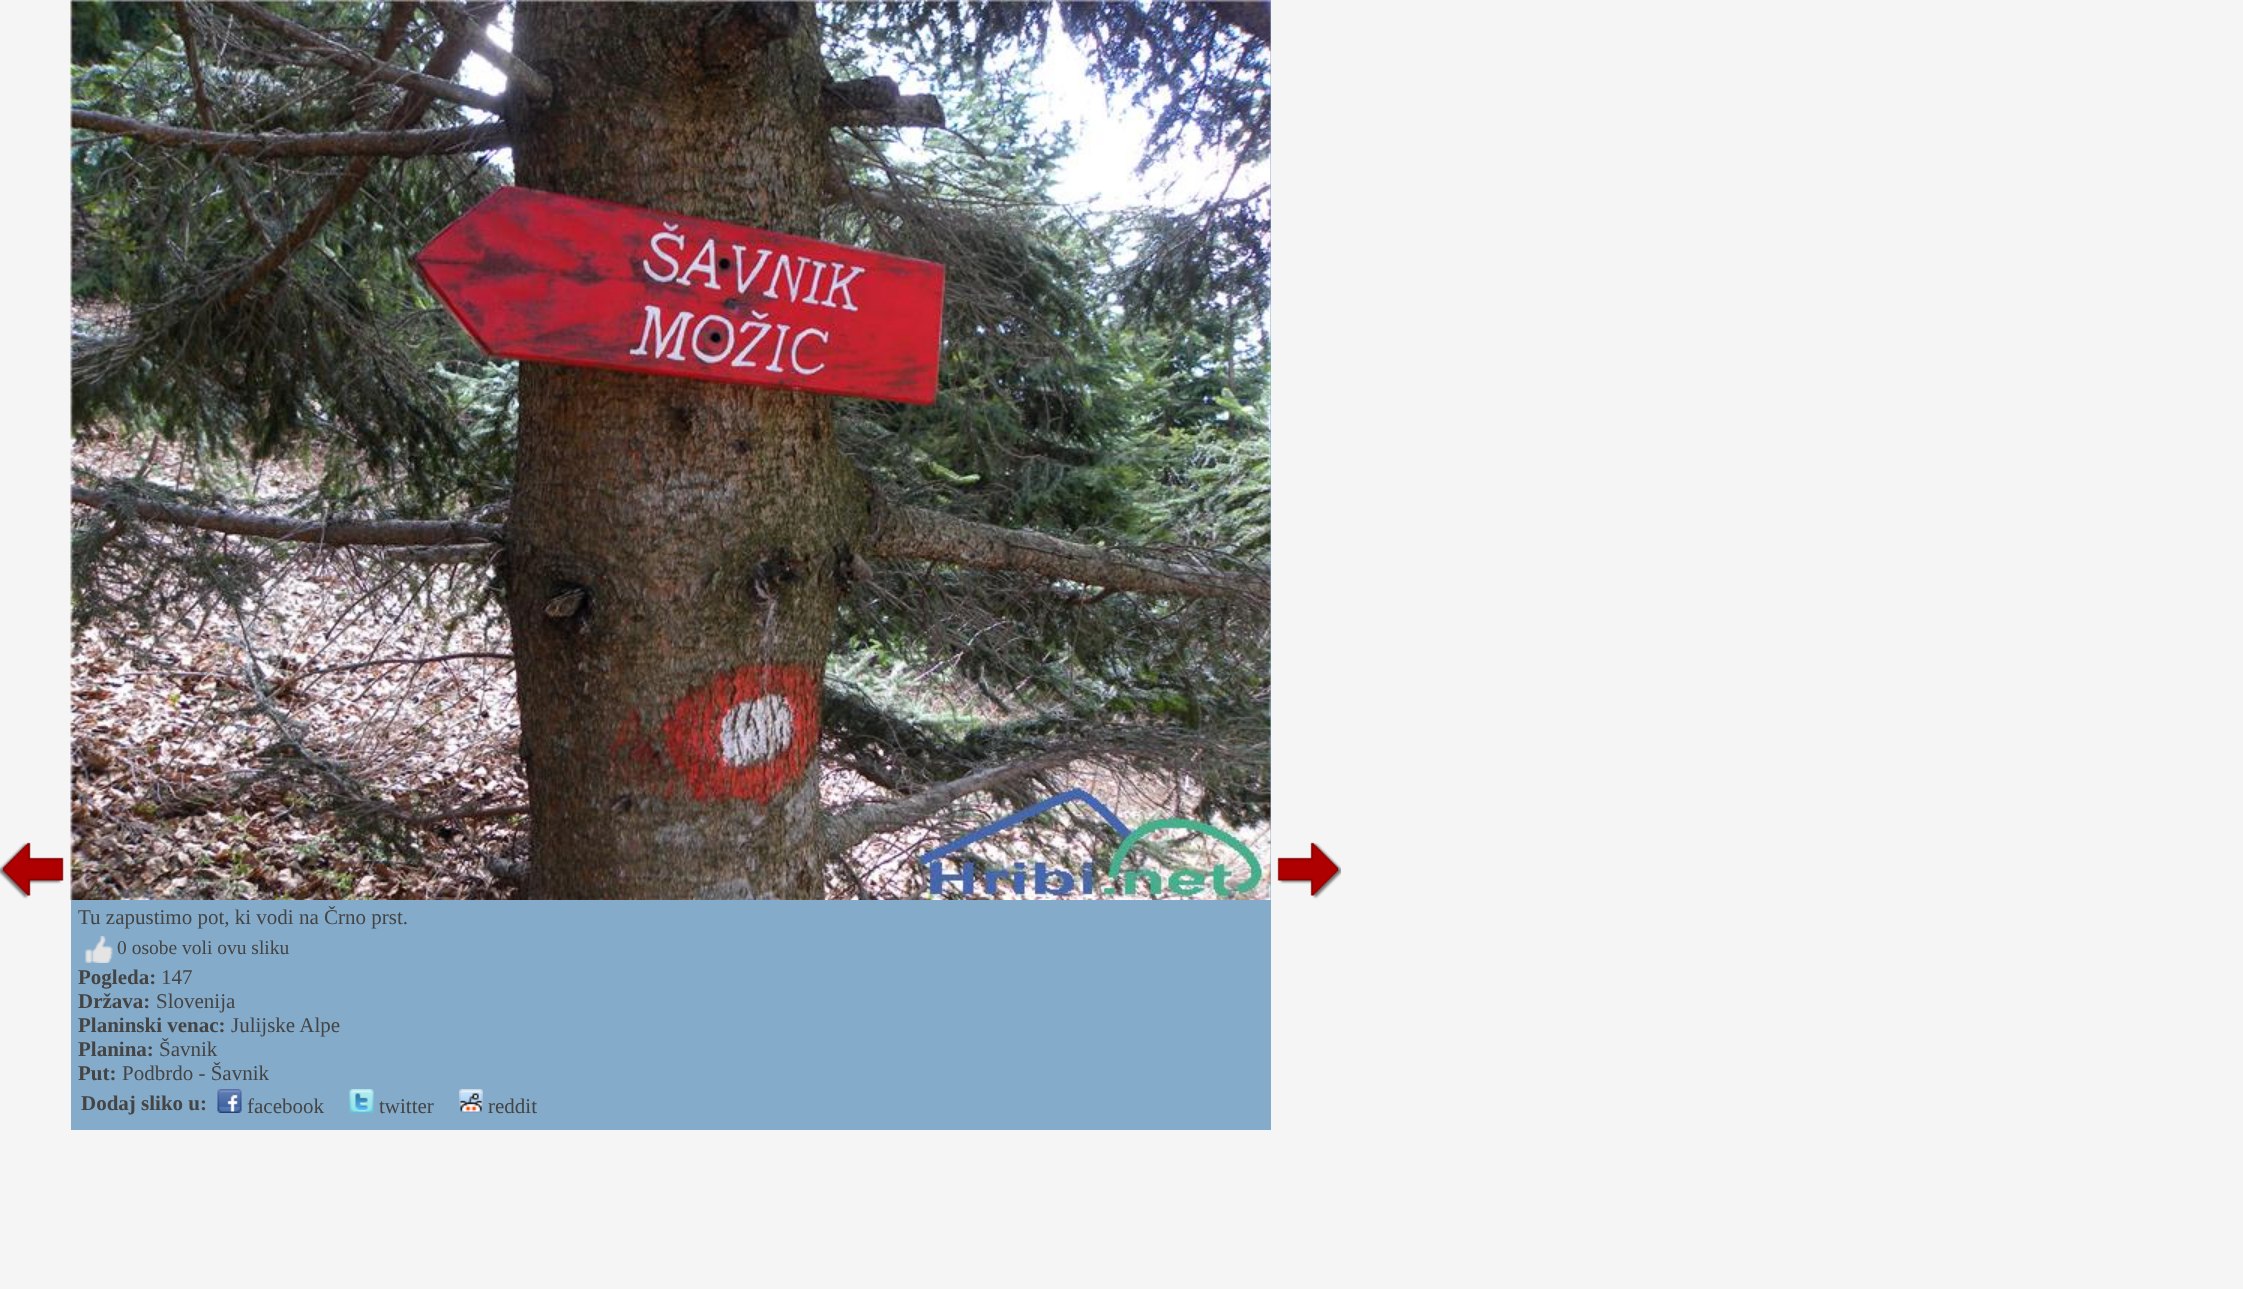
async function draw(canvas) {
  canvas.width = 2243
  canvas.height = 1289
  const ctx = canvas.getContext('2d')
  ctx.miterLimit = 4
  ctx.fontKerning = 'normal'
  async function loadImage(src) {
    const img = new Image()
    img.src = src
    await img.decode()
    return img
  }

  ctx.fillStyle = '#f5f5f5'
  ctx.fillRect(0, 0, 2243, 1289)
  ctx.drawImage(await loadImage('image0.png'), 0, 842, 64, 57)
  ctx.drawImage(await loadImage('image1.png'), 1277, 842, 64, 57)
  ctx.fillStyle = '#85abca'
  ctx.fillRect(71, 0, 1200, 1130)
  ctx.drawImage(await loadImage('image2.png'), 70, 0, 1201, 900)
  ctx.font = '21px Liberation Serif'
  ctx.fillStyle = '#444'
  ctx.fillText('Tu zapustimo pot, ki vodi na Črno prst.', 78, 924)
  ctx.drawImage(await loadImage('image3.png'), 85, 936, 28, 27)
  ctx.font = '19.5px Liberation Serif'
  ctx.fillText('0 osobe voli ovu sliku', 117, 954)
  ctx.font = 'bold 21px Liberation Serif'
  ctx.fillText('Pogleda:', 78, 984)
  ctx.font = '21px Liberation Serif'
  ctx.fillText('147', 161, 984)
  ctx.font = 'bold 21px Liberation Serif'
  ctx.fillText('Država:', 78, 1008)
  ctx.font = '21px Liberation Serif'
  ctx.fillText('Slovenija', 156, 1008)
  ctx.font = 'bold 21px Liberation Serif'
  ctx.fillText('Planinski venac:', 78, 1032)
  ctx.font = '21px Liberation Serif'
  ctx.fillText('Julijske Alpe', 231, 1032)
  ctx.font = 'bold 21px Liberation Serif'
  ctx.fillText('Planina:', 78, 1056)
  ctx.font = '21px Liberation Serif'
  ctx.fillText('Šavnik', 159, 1056)
  ctx.font = 'bold 21px Liberation Serif'
  ctx.fillText('Put:', 78, 1080)
  ctx.font = '21px Liberation Serif'
  ctx.fillText('Podbrdo - Šavnik', 122, 1080)
  ctx.font = 'bold 21px Liberation Serif'
  ctx.fillText('Dodaj sliko u:', 81, 1110)
  ctx.drawImage(await loadImage('image4.png'), 217, 1089, 25, 24)
  ctx.font = '21px Liberation Serif'
  ctx.fillText('facebook', 247, 1113)
  ctx.drawImage(await loadImage('image5.png'), 349, 1089, 25, 24)
  ctx.fillText('twitter', 379, 1113)
  ctx.drawImage(await loadImage('image6.png'), 459, 1089, 24, 24)
  ctx.fillText('reddit', 488, 1113)
}

draw(document.querySelector('canvas'))
